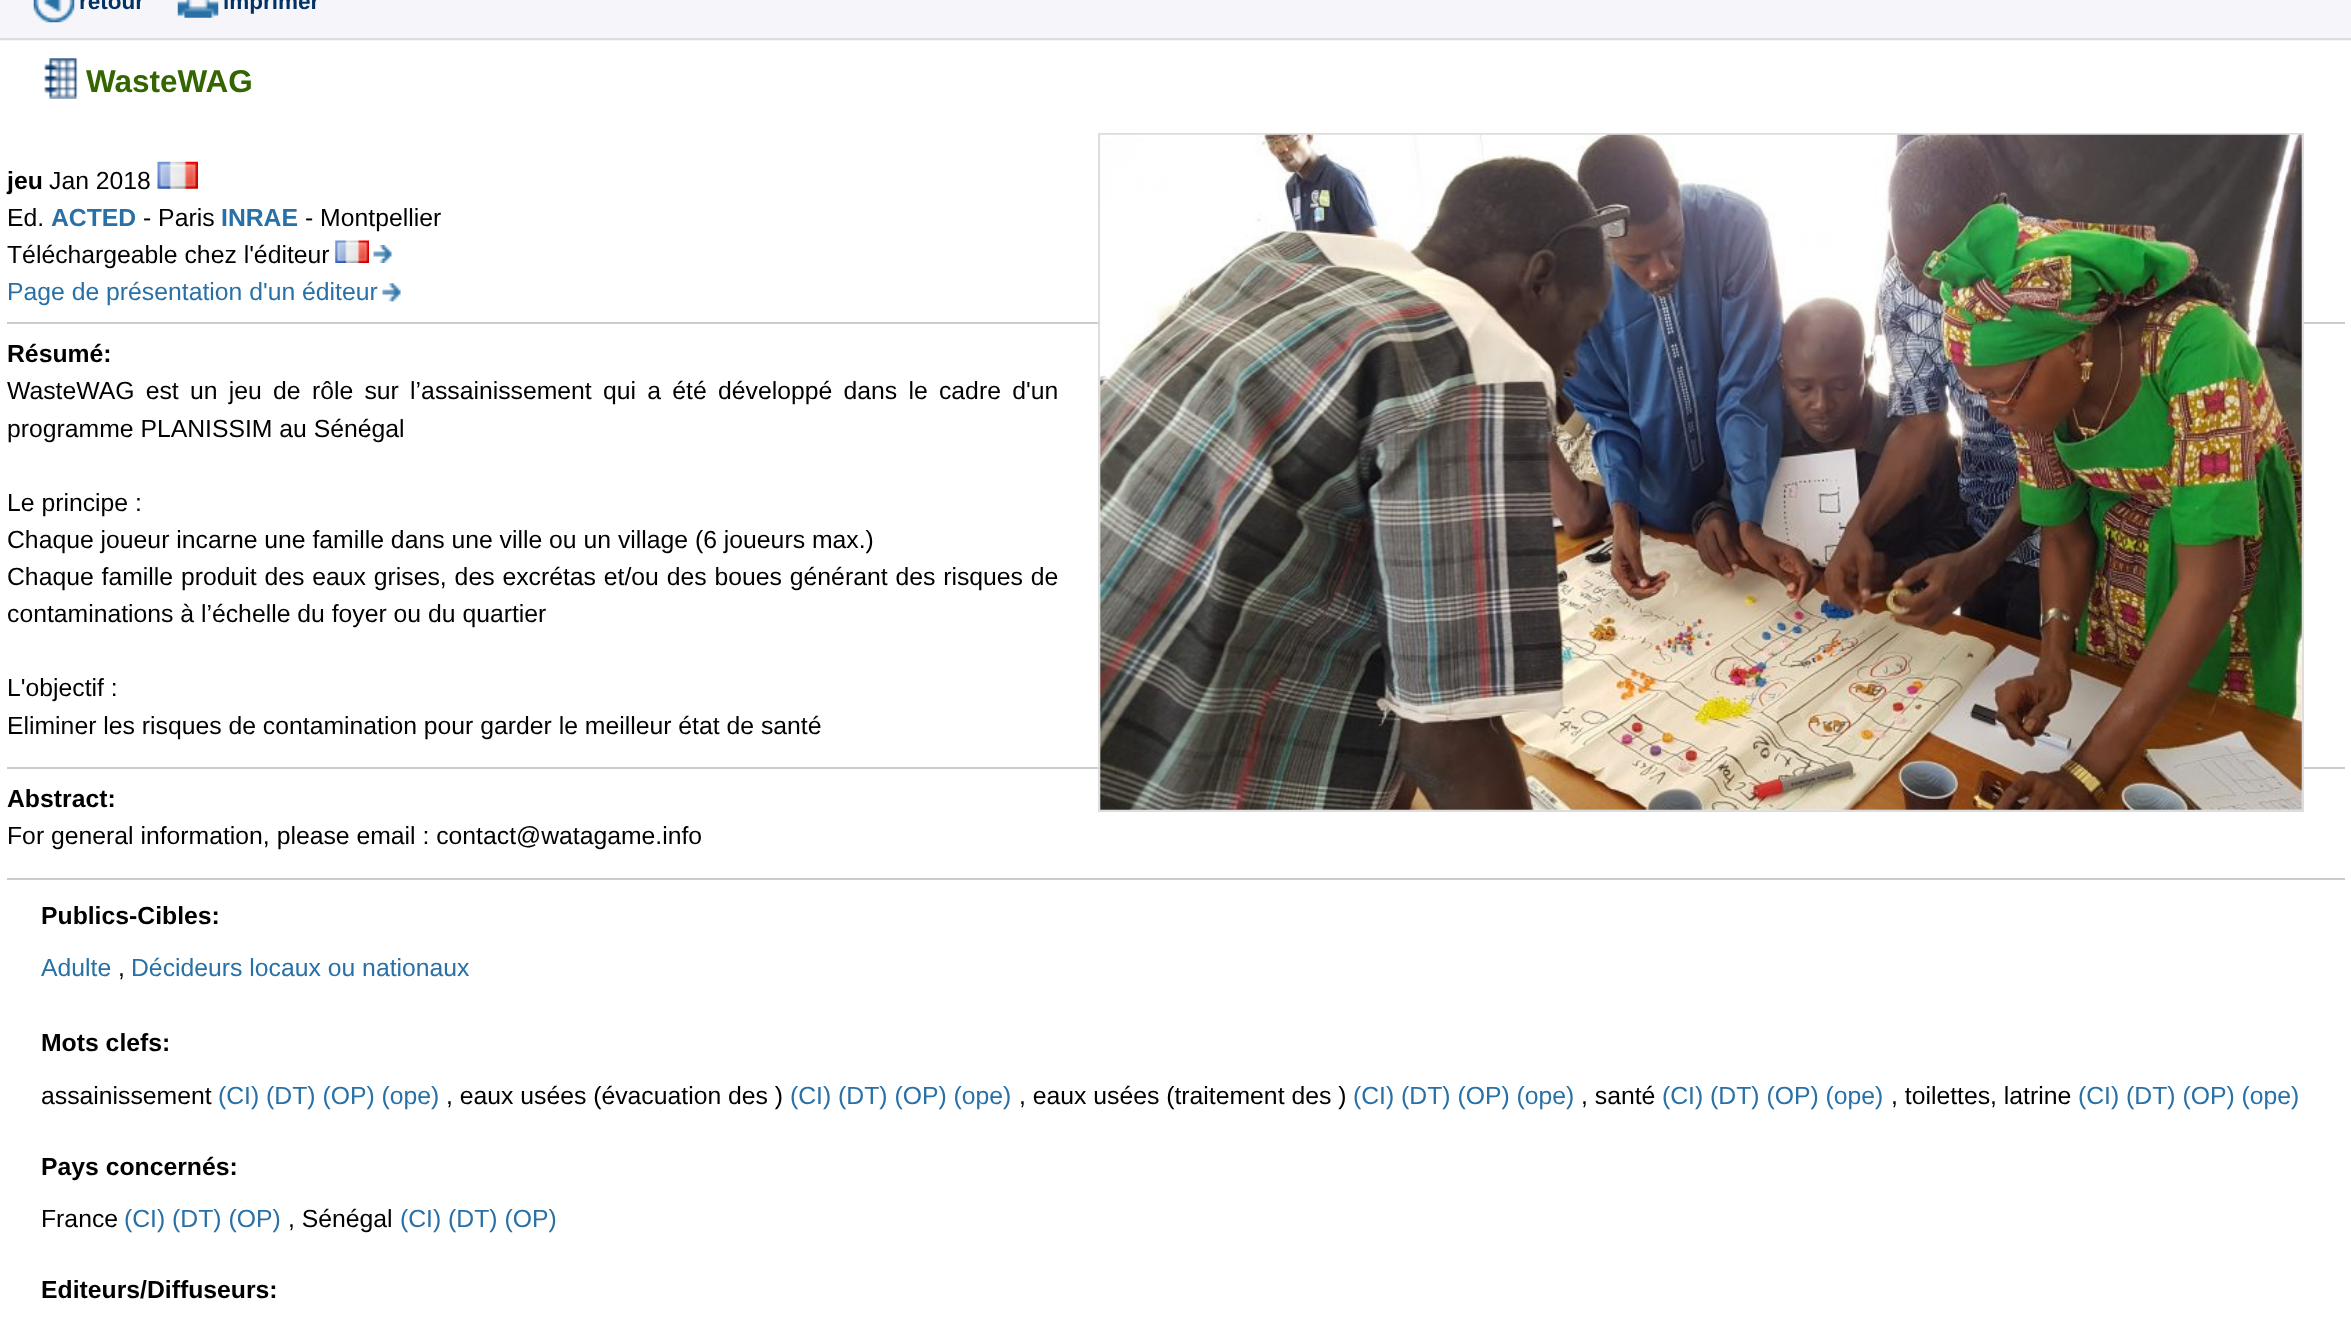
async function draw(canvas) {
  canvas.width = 2351
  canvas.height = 1342
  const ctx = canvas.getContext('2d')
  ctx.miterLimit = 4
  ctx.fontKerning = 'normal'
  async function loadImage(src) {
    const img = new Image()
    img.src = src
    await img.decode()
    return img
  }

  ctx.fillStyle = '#fff'
  ctx.fillRect(0, 0, 2351, 1342)
  ctx.fillStyle = '#f6f6fa'
  ctx.fillRect(0, 0, 2351, 41)
  ctx.fillStyle = '#ddd'
  ctx.fillRect(0, 38, 2351, 2)
  ctx.drawImage(await loadImage('image0.png'), 33, 0, 42, 23)
  ctx.font = 'bold 22.5px Liberation Sans'
  ctx.fillStyle = '#013366'
  ctx.fillText('retour', 79, 9)
  ctx.drawImage(await loadImage('image1.png'), 177, 0, 42, 18)
  ctx.fillText('imprimer', 223, 9)
  ctx.drawImage(await loadImage('image2.png'), 44, 58, 34, 41)
  ctx.font = 'bold 31.5px Liberation Sans'
  ctx.fillStyle = '#360'
  ctx.fillText('WasteWAG', 86, 92)
  ctx.font = 'bold 24.75px Liberation Sans'
  ctx.fillStyle = '#000'
  ctx.fillText('jeu', 7, 189)
  ctx.font = '24.75px Liberation Sans'
  ctx.fillText('Jan 2018', 49, 189)
  ctx.drawImage(await loadImage('image3.png'), 157, 161, 41, 28)
  ctx.fillStyle = '#ccc'
  ctx.fillRect(7, 322, 2338, 2)
  ctx.fillRect(7, 767, 2338, 2)
  ctx.strokeStyle = '#ddd'
  ctx.lineWidth = 2
  ctx.strokeRect(1099, 134, 1204, 677)
  ctx.drawImage(await loadImage('image4.png'), 1100, 134, 1202, 676)
  ctx.fillStyle = '#000'
  ctx.fillText('Ed.', 7, 226)
  ctx.font = 'bold 24.75px Liberation Sans'
  ctx.fillStyle = '#2970a6'
  ctx.fillText('ACTED', 51, 226)
  ctx.font = '24.75px Liberation Sans'
  ctx.fillStyle = '#000'
  ctx.fillText('- Paris', 143, 226)
  ctx.font = 'bold 24.75px Liberation Sans'
  ctx.fillStyle = '#2970a6'
  ctx.fillText('INRAE', 221, 226)
  ctx.font = '24.75px Liberation Sans'
  ctx.fillStyle = '#000'
  ctx.fillText('- Montpellier', 305, 226)
  ctx.fillText('Téléchargeable chez l\'éditeur', 7, 263)
  ctx.drawImage(await loadImage('image5.png'), 335, 240, 34, 23)
  ctx.drawImage(await loadImage('image6.png'), 373, 245, 19, 18)
  ctx.fillStyle = '#2970a6'
  ctx.fillText('Page de présentation d\'un éditeur', 7, 300)
  ctx.drawImage(await loadImage('image7.png'), 382, 283, 19, 19)
  ctx.font = 'bold 24.75px Liberation Sans'
  ctx.fillStyle = '#000'
  ctx.fillText('Résumé:', 7, 362)
  ctx.wordSpacing = '4.4px'
  ctx.font = '24.75px Liberation Sans'
  ctx.fillText('WasteWAG est un jeu de rôle sur l’assainissement qui a été développé dans le cadre d\'un', 7, 399)
  ctx.wordSpacing = '0px'
  ctx.fillText('programme PLANISSIM au Sénégal', 7, 437)
  ctx.fillText('Le principe :', 7, 511)
  ctx.fillText('Chaque joueur incarne une famille dans une ville ou un village (6 joueurs max.)', 7, 548)
  ctx.wordSpacing = '1px'
  ctx.fillText('Chaque famille produit des eaux grises, des excrétas et/ou des boues générant des risques de', 7, 585)
  ctx.wordSpacing = '0px'
  ctx.fillText('contaminations à l’échelle du foyer ou du quartier', 7, 622)
  ctx.fillText('L\'objectif :', 7, 696)
  ctx.fillText('Eliminer les risques de contamination pour garder le meilleur état de santé', 7, 734)
  ctx.font = 'bold 24.75px Liberation Sans'
  ctx.fillText('Abstract:', 7, 807)
  ctx.font = '24.75px Liberation Sans'
  ctx.fillText('For general information, please email : contact@watagame.info', 7, 844)
  ctx.fillStyle = '#ccc'
  ctx.fillRect(7, 878, 2338, 2)
  ctx.font = 'bold 24.75px Liberation Sans'
  ctx.fillStyle = '#000'
  ctx.fillText('Publics-Cibles:', 41, 924)
  ctx.font = '24.75px Liberation Sans'
  ctx.fillStyle = '#2970a6'
  ctx.fillText('Adulte', 41, 976)
  ctx.fillStyle = '#000'
  ctx.fillText(',', 118, 976)
  ctx.fillStyle = '#2970a6'
  ctx.fillText('Décideurs locaux ou nationaux', 131, 976)
  ctx.font = 'bold 24.75px Liberation Sans'
  ctx.fillStyle = '#000'
  ctx.fillText('Mots clefs:', 41, 1051)
  ctx.font = '24.75px Liberation Sans'
  ctx.fillText('assainissement', 41, 1104)
  ctx.fillStyle = '#2970a6'
  ctx.fillText('(CI) (DT) (OP) (ope)', 218, 1104)
  ctx.fillStyle = '#000'
  ctx.fillText(', eaux usées (évacuation des )', 446, 1104)
  ctx.fillStyle = '#2970a6'
  ctx.fillText('(CI) (DT) (OP) (ope)', 790, 1104)
  ctx.fillStyle = '#000'
  ctx.fillText(', eaux usées (traitement des )', 1019, 1104)
  ctx.fillStyle = '#2970a6'
  ctx.fillText('(CI) (DT) (OP) (ope)', 1353, 1104)
  ctx.fillStyle = '#000'
  ctx.fillText(', santé', 1581, 1104)
  ctx.fillStyle = '#2970a6'
  ctx.fillText('(CI) (DT) (OP) (ope)', 1662, 1104)
  ctx.fillStyle = '#000'
  ctx.fillText(', toilettes, latrine', 1891, 1104)
  ctx.fillStyle = '#2970a6'
  ctx.fillText('(CI) (DT) (OP) (ope)', 2078, 1104)
  ctx.font = 'bold 24.75px Liberation Sans'
  ctx.fillStyle = '#000'
  ctx.fillText('Pays concernés:', 41, 1175)
  ctx.font = '24.75px Liberation Sans'
  ctx.fillText('France', 41, 1227)
  ctx.fillStyle = '#2970a6'
  ctx.fillText('(CI) (DT) (OP)', 124, 1227)
  ctx.fillStyle = '#000'
  ctx.fillText(', Sénégal', 288, 1227)
  ctx.fillStyle = '#2970a6'
  ctx.fillText('(CI) (DT) (OP)', 400, 1227)
  ctx.font = 'bold 24.75px Liberation Sans'
  ctx.fillStyle = '#000'
  ctx.fillText('Editeurs/Diffuseurs:', 41, 1298)
}

draw(document.querySelector('canvas'))
